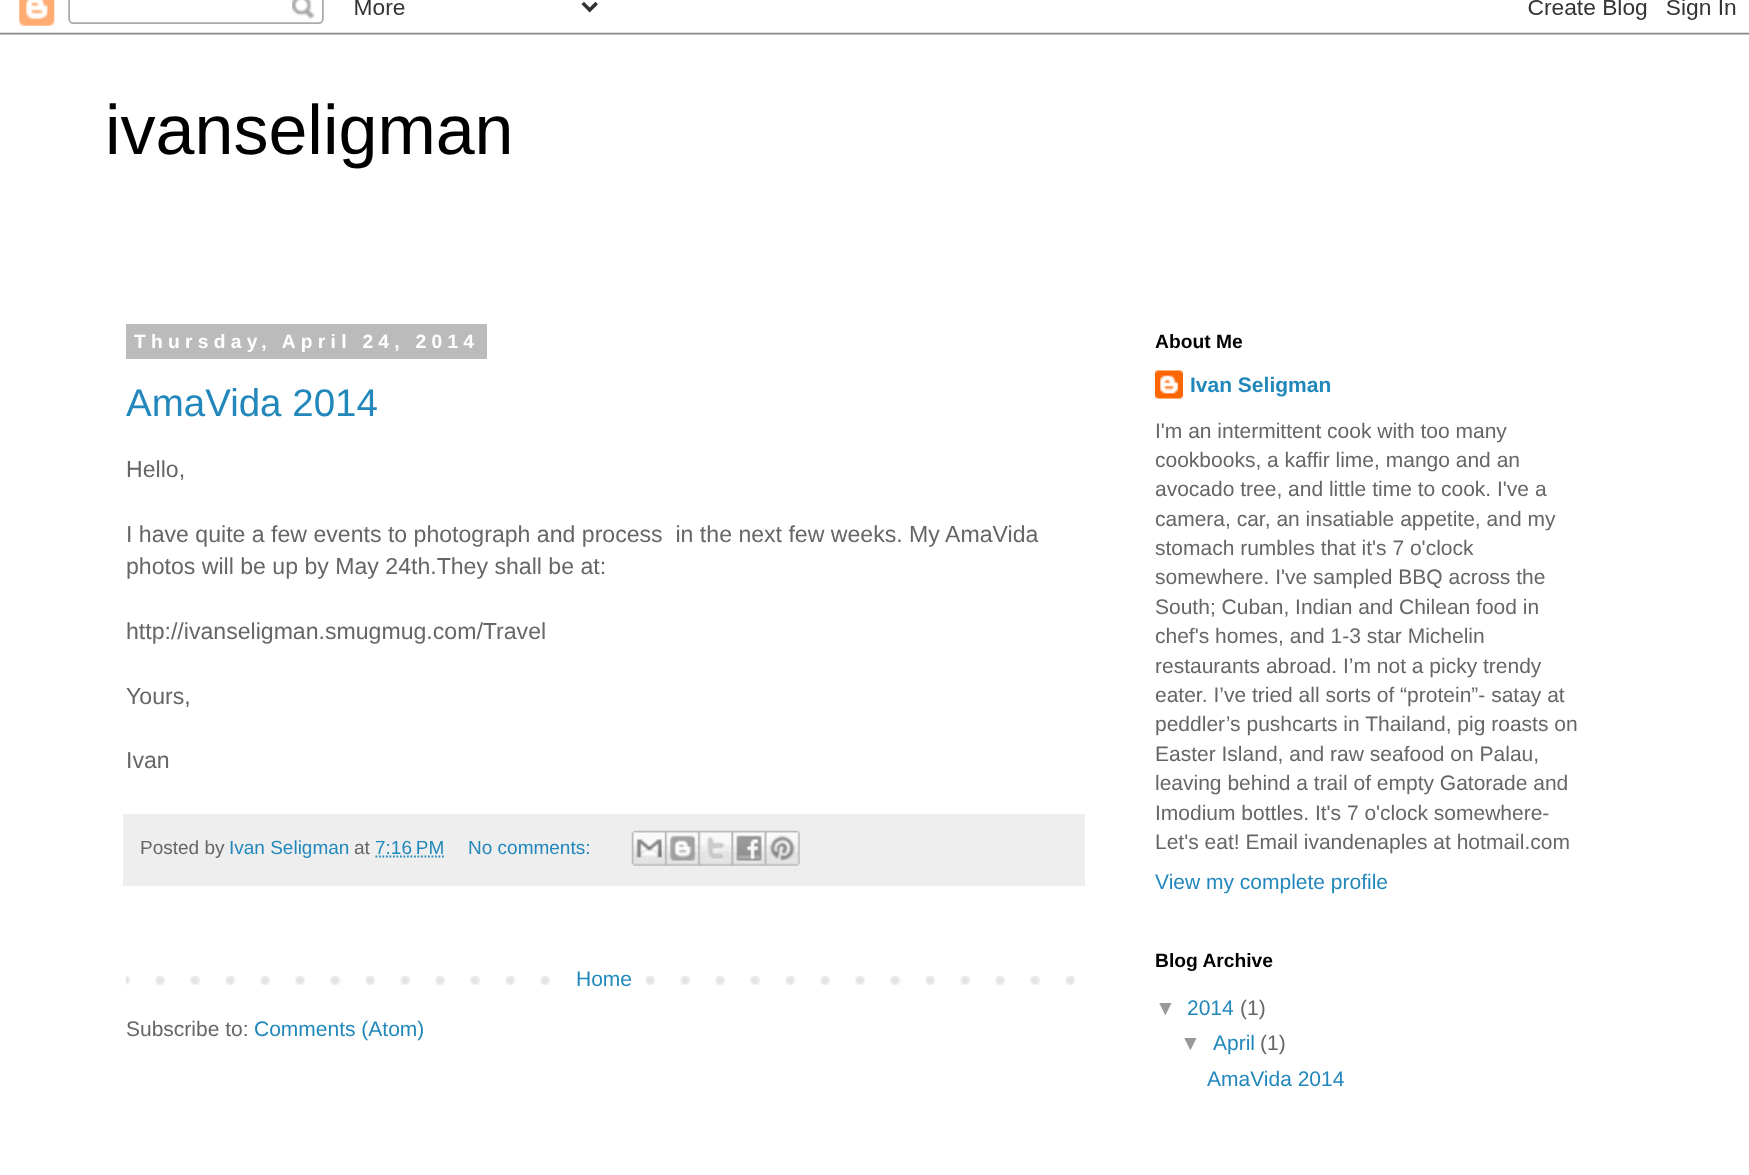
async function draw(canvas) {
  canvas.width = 1749
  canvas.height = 1175
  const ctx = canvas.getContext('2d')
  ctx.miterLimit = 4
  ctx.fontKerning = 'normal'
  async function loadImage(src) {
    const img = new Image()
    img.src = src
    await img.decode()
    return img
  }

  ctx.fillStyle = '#fff'
  ctx.fillRect(0, 0, 1749, 1175)
  ctx.drawImage(await loadImage('image0.png'), 0, 0, 1749, 35)
  ctx.font = '70px Liberation Sans'
  ctx.fillStyle = '#000'
  ctx.fillText('ivanseligman', 105, 154)
  ctx.fillStyle = '#bbb'
  ctx.fillRect(126, 324, 361, 35)
  ctx.letterSpacing = '5.25px'
  ctx.font = 'bold 19.25px Liberation Sans'
  ctx.fillStyle = '#fff'
  ctx.fillText('Thursday, April 24, 2014', 134, 348)
  ctx.letterSpacing = '0px'
  ctx.font = '38.5px Liberation Sans'
  ctx.fillStyle = '#28b'
  ctx.fillText('AmaVida 2014', 126, 416)
  ctx.font = '23.1px Liberation Sans'
  ctx.fillStyle = '#666'
  ctx.fillText('Hello,', 126, 477)
  ctx.fillText('I have quite a few events to photograph and process  in the next few weeks. My AmaVida', 126, 542)
  ctx.fillText('photos will be up by May 24th.They shall be at:', 126, 574)
  ctx.fillText('http://ivanseligman.smugmug.com/Travel', 126, 639)
  ctx.fillText('Yours,', 126, 704)
  ctx.fillText('Ivan', 126, 768)
  ctx.fillStyle = '#eee'
  ctx.fillRect(123, 814, 962, 72)
  ctx.font = '19px Liberation Sans'
  ctx.fillStyle = '#666'
  ctx.fillText('Posted by', 140, 854)
  ctx.fillStyle = '#28b'
  ctx.fillText('Ivan Seligman', 229, 854)
  ctx.fillStyle = '#666'
  ctx.fillText('at', 354, 854)
  ctx.fillStyle = '#28b'
  ctx.fillText('7:16 PM', 375, 854)
  ctx.beginPath()
  ctx.moveTo(375.5, 856.5)
  ctx.lineTo(444, 856.5)
  ctx.strokeStyle = '#28b'
  ctx.lineWidth = 1.8
  ctx.setLineDash([1.75, 1.75])
  ctx.stroke()
  ctx.fillText('No comments:', 468, 854)
  ctx.drawImage(await loadImage('image1.png'), 631, 830, 36, 36)
  ctx.drawImage(await loadImage('image2.png'), 665, 830, 35, 36)
  ctx.drawImage(await loadImage('image3.png'), 698, 830, 36, 36)
  ctx.drawImage(await loadImage('image4.png'), 731, 830, 36, 36)
  ctx.drawImage(await loadImage('image5.png'), 764, 830, 36, 36)
  ctx.drawImage(await loadImage('image6.png'), 126, 976, 949, 9)
  ctx.fillStyle = '#fff'
  ctx.fillRect(575, 976, 46, 9)
  ctx.font = '21px Liberation Sans'
  ctx.fillStyle = '#28b'
  ctx.fillText('Home', 576, 986)
  ctx.fillStyle = '#666'
  ctx.fillText('Subscribe to:', 126, 1036)
  ctx.fillStyle = '#28b'
  ctx.fillText('Comments (Atom)', 254, 1036)
  ctx.font = 'bold 19.25px Liberation Sans'
  ctx.fillStyle = '#000'
  ctx.fillText('About Me', 1155, 348)
  ctx.drawImage(await loadImage('image7.png'), 1155, 370, 28, 29)
  ctx.font = 'bold 21px Liberation Sans'
  ctx.fillStyle = '#28b'
  ctx.fillText('Ivan Seligman', 1190, 392)
  ctx.font = '21px Liberation Sans'
  ctx.fillStyle = '#666'
  ctx.fillText('I\'m an intermittent cook with too many', 1155, 438)
  ctx.fillText('cookbooks, a kaffir lime, mango and an', 1155, 467)
  ctx.fillText('avocado tree, and little time to cook. I\'ve a', 1155, 496)
  ctx.fillText('camera, car, an insatiable appetite, and my', 1155, 526)
  ctx.fillText('stomach rumbles that it\'s 7 o\'clock', 1155, 555)
  ctx.fillText('somewhere. I\'ve sampled BBQ across the', 1155, 584)
  ctx.fillText('South; Cuban, Indian and Chilean food in', 1155, 614)
  ctx.fillText('chef\'s homes, and 1-3 star Michelin', 1155, 643)
  ctx.fillText('restaurants abroad. I’m not a picky trendy', 1155, 673)
  ctx.fillText('eater. I’ve tried all sorts of “protein”- satay at', 1155, 702)
  ctx.fillText('peddler’s pushcarts in Thailand, pig roasts on', 1155, 731)
  ctx.fillText('Easter Island, and raw seafood on Palau,', 1155, 761)
  ctx.fillText('leaving behind a trail of empty Gatorade and', 1155, 790)
  ctx.fillText('Imodium bottles. It\'s 7 o\'clock somewhere-', 1155, 820)
  ctx.fillText('Let\'s eat! Email ivandenaples at hotmail.com', 1155, 849)
  ctx.fillStyle = '#28b'
  ctx.fillText('View my complete profile', 1155, 889)
  ctx.font = 'bold 19.25px Liberation Sans'
  ctx.fillStyle = '#000'
  ctx.fillText('Blog Archive', 1155, 967)
  ctx.font = '21px Liberation Sans'
  ctx.fillStyle = '#999'
  ctx.fillText('▼', 1155, 1015)
  ctx.fillStyle = '#28b'
  ctx.fillText('2014', 1187, 1015)
  ctx.fillStyle = '#666'
  ctx.fillText('(1)', 1240, 1015)
  ctx.fillStyle = '#999'
  ctx.fillText('▼', 1180, 1050)
  ctx.fillStyle = '#28b'
  ctx.fillText('April', 1213, 1050)
  ctx.fillStyle = '#666'
  ctx.fillText('(1)', 1260, 1050)
  ctx.fillStyle = '#28b'
  ctx.fillText('AmaVida 2014', 1207, 1086)
}

draw(document.querySelector('canvas'))
